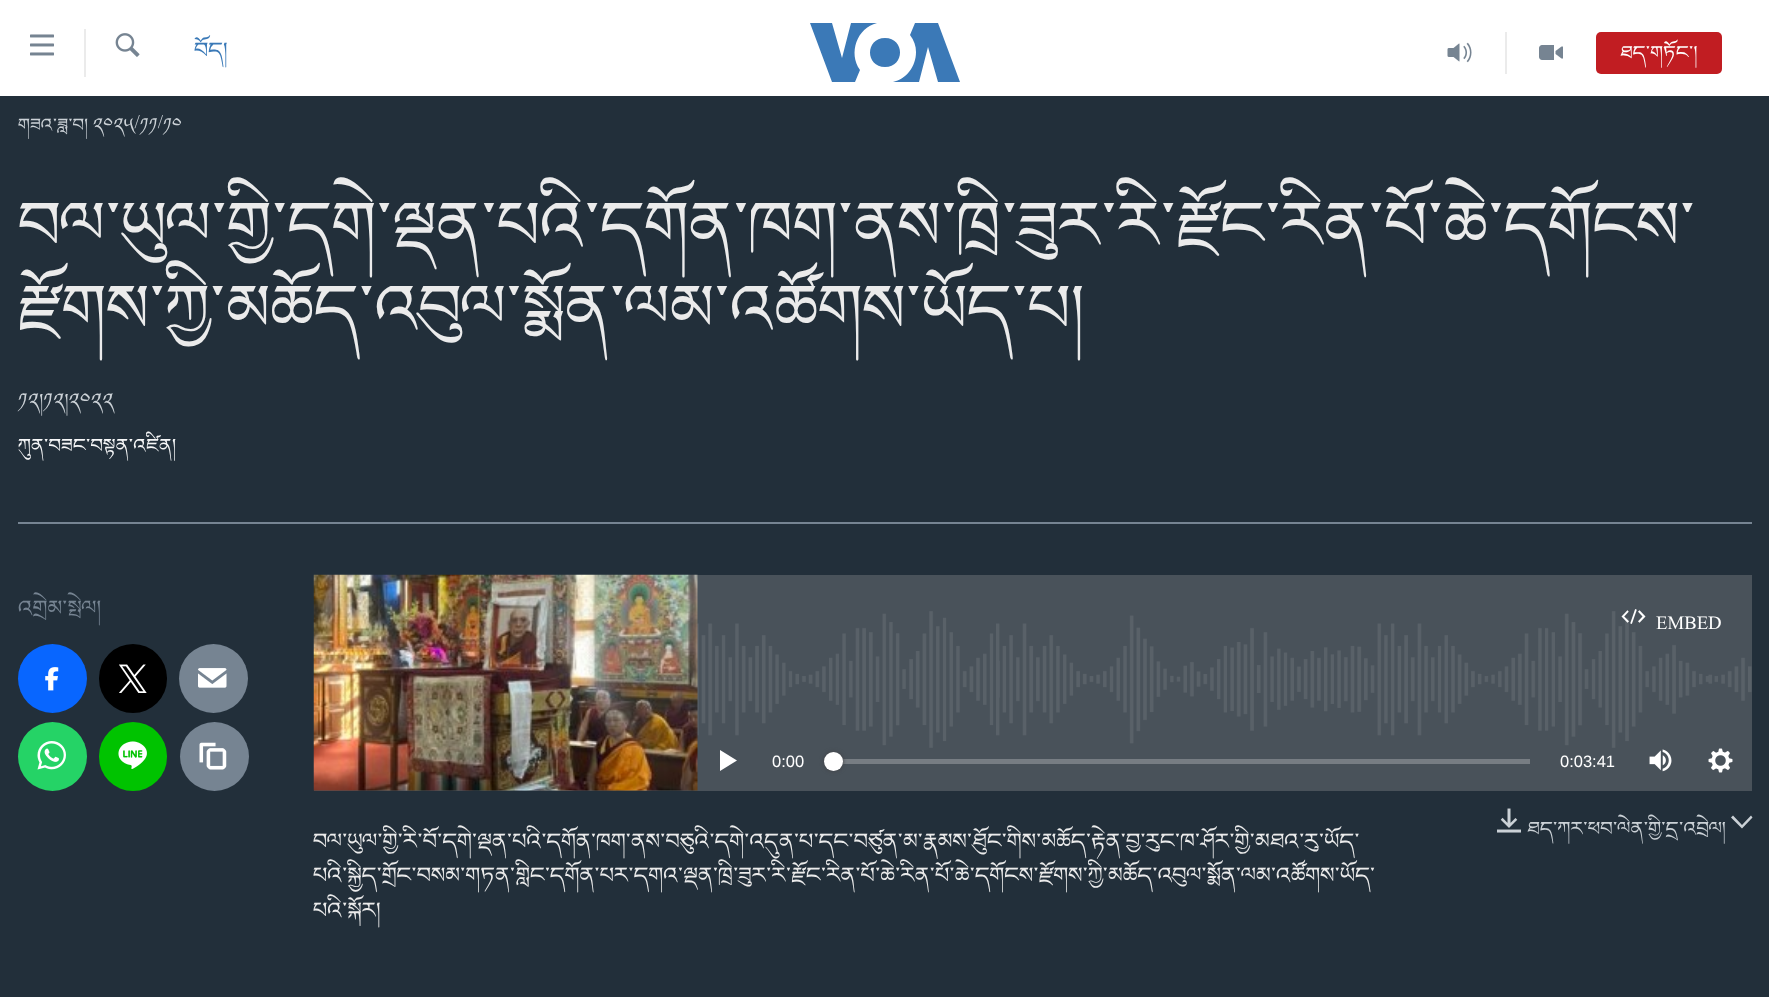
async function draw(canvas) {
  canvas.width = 1769
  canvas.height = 997
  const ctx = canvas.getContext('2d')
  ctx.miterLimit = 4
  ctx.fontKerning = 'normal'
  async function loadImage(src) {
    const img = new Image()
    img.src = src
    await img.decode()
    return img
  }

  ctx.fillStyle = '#fff'
  ctx.fillRect(0, 0, 1769, 997)
  ctx.drawImage(await loadImage('image0.png'), 30, 34, 24, 22)
  ctx.fillStyle = '#ebebeb'
  ctx.fillRect(84, 29, 2, 48)
  ctx.drawImage(await loadImage('image1.png'), 115, 33, 25, 24)
  ctx.save()
  ctx.beginPath()
  ctx.rect(194, 35, 34, 34)
  ctx.clip()
  ctx.font = '34.5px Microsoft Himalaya'
  ctx.fillStyle = '#3a79b7'
  ctx.fillText('བོད།', 194, 54)
  ctx.restore()
  ctx.fillStyle = '#3b79b7'
  ctx.beginPath()
  ctx.moveTo(860, 70)
  ctx.lineTo(855, 82)
  ctx.lineTo(832, 82)
  ctx.lineTo(810, 23)
  ctx.lineTo(832, 23)
  ctx.lineTo(842, 58)
  ctx.lineTo(851, 23)
  ctx.lineTo(877, 23)
  ctx.bezierCurveTo(857, 28, 848, 53, 860, 70)
  ctx.closePath()
  ctx.moveTo(885, 38)
  ctx.bezierCurveTo(865, 38, 865, 67, 885, 67)
  ctx.bezierCurveTo(905, 67, 905, 38, 885, 38)
  ctx.closePath()
  ctx.moveTo(916, 52)
  ctx.bezierCurveTo(916, 67, 906, 79, 893, 82)
  ctx.lineTo(919, 82)
  ctx.lineTo(928, 47)
  ctx.lineTo(938, 82)
  ctx.lineTo(960, 82)
  ctx.lineTo(938, 23)
  ctx.lineTo(915, 23)
  ctx.lineTo(910, 35)
  ctx.bezierCurveTo(914, 40, 916, 46, 916, 52)
  ctx.closePath()
  ctx.fill()
  ctx.fillStyle = '#ebebeb'
  ctx.fillRect(1505, 32, 2, 42)
  ctx.drawImage(await loadImage('image2.png'), 1447, 42, 25, 21)
  ctx.drawImage(await loadImage('image3.png'), 1539, 45, 24, 15)
  ctx.fillStyle = '#c11d22'
  ctx.beginPath()
  ctx.roundRect(1596, 32, 126, 42, 5)
  ctx.fill()
  ctx.font = '30px Microsoft Himalaya'
  ctx.fillStyle = '#fff'
  ctx.fillText('ཐད་གཏོང་།', 1620, 56)
  ctx.fillStyle = '#222f3a'
  ctx.fillRect(0, 96, 1769, 901)
  ctx.font = '28px Microsoft Himalaya'
  ctx.fillStyle = '#cbd1d6'
  ctx.fillText('གཟའ་ཟླ་བ། ༢༠༢༥/༡༡/༡༠', 18, 128)
  ctx.font = '103.5px Microsoft Himalaya'
  ctx.fillStyle = '#ebebeb'
  ctx.fillText('བལ་ཡུལ་གྱི་དགེ་ལྡན་པའི་དགོན་ཁག་ནས་ཁྲི་ཟུར་རི་རྫོང་རིན་པོ་ཆེ་དགོངས་', 18, 237)
  ctx.fillText('རྫོགས་ཀྱི་མཆོད་འབུལ་སྨོན་ལམ་འཚོགས་ཡོད་པ།', 18, 320)
  ctx.font = '30.25px Microsoft Himalaya'
  ctx.fillStyle = '#cbd1d6'
  ctx.fillText('༡༢།༡༢།༢༠༢༢', 18, 404)
  ctx.fillStyle = '#f6f7f8'
  ctx.fillText('ཀུན་བཟང་བསྟན་འཛིན།', 18, 449)
  ctx.fillStyle = '#768492'
  ctx.fillRect(18, 522, 1734, 2)
  ctx.font = '34.5px Microsoft Himalaya'
  ctx.fillText('འགྲེམ་སྤེལ།', 18, 612)
  ctx.fillStyle = '#0866ff'
  ctx.beginPath()
  ctx.arc(52.5, 678.5, 34.5, 0, 2 * Math.PI)
  ctx.fill()
  ctx.drawImage(await loadImage('image4.png'), 45, 667, 14, 24)
  ctx.fillStyle = '#000'
  ctx.beginPath()
  ctx.roundRect(99, 644, 68, 69, 34)
  ctx.fill()
  ctx.drawImage(await loadImage('image5.png'), 119, 664, 28, 29)
  ctx.fillStyle = '#768492'
  ctx.beginPath()
  ctx.arc(213.5, 678.5, 34.5, 0, 2 * Math.PI)
  ctx.fill()
  ctx.drawImage(await loadImage('image6.png'), 198, 668, 29, 20)
  ctx.fillStyle = '#25d366'
  ctx.beginPath()
  ctx.arc(52.5, 756.5, 34.5, 0, 2 * Math.PI)
  ctx.fill()
  ctx.drawImage(await loadImage('image7.png'), 37, 741, 29, 29)
  ctx.fillStyle = '#00c300'
  ctx.beginPath()
  ctx.roundRect(99, 722, 68, 69, 34)
  ctx.fill()
  ctx.drawImage(await loadImage('image8.png'), 118, 741, 29, 28)
  ctx.fillStyle = '#768492'
  ctx.beginPath()
  ctx.arc(214.5, 756.5, 34.5, 0, 2 * Math.PI)
  ctx.fill()
  ctx.drawImage(await loadImage('image9.png'), 199, 742, 28, 28)
  ctx.fillStyle = '#49525a'
  ctx.fillRect(314, 575, 1438, 216)
  ctx.drawImage(await loadImage('image10.png'), 313, 611, 1439, 137)
  ctx.drawImage(await loadImage('image11.png'), 313, 574, 385, 217)
  ctx.drawImage(await loadImage('image12.png'), 1621, 609, 25, 15)
  ctx.font = '28px Microsoft Himalaya'
  ctx.fillStyle = '#fff'
  ctx.fillText('EMBED', 1656, 629)
  ctx.beginPath()
  ctx.moveTo(720, 771)
  ctx.lineTo(737, 760.5)
  ctx.lineTo(720, 750)
  ctx.closePath()
  ctx.fill()
  ctx.font = '16.5px Liberation Sans'
  ctx.fillText('0:00', 772, 767)
  ctx.fillStyle = '#777d83'
  ctx.fillRect(834, 759, 696, 5)
  ctx.fillStyle = '#414144'
  ctx.filter = 'blur(2px)'
  ctx.beginPath()
  ctx.roundRect(824, 752, 19, 19, 9.5)
  ctx.fill()
  ctx.filter = 'none'
  ctx.fillStyle = '#fff'
  ctx.beginPath()
  ctx.arc(833.5, 761.5, 9.5, 0, 2 * Math.PI)
  ctx.fill()
  ctx.fillText('0:03:41', 1560, 767)
  ctx.drawImage(await loadImage('image13.png'), 1649, 749, 23, 23)
  ctx.drawImage(await loadImage('image14.png'), 1708, 748, 25, 25)
  ctx.font = '34.5px Microsoft Himalaya'
  ctx.fillStyle = '#ebebeb'
  ctx.fillText('བལ་ཡུལ་གྱི་རི་བོ་དགེ་ལྡན་པའི་དགོན་ཁག་ནས་བཅུའི་དགེ་འདུན་པ་དང་བཙུན་མ་རྣམས་ཐོུང་གིས་མཆོད་རྟེན་བྱ་རུང་ཁ་ཤོར་གྱི་མཐའ་རུ་ཡོད་', 313, 845)
  ctx.fillText('པའི་སྐྱིད་གྲོང་བསམ་གཏན་གླིང་དགོན་པར་དགའ་ལྡན་ཁྲི་ཟུར་རི་རྫོང་རིན་པོ་ཆེ་རིན་པོ་ཆེ་དགོངས་རྫོགས་ཀྱི་མཆོད་འབུལ་སྨོན་ལམ་འཚོགས་ཡོད་', 313, 879)
  ctx.fillText('པའི་སྐོར།', 313, 914)
  ctx.drawImage(await loadImage('image15.png'), 1497, 808, 24, 25)
  ctx.font = '30.25px Microsoft Himalaya'
  ctx.fillStyle = '#cbd1d6'
  ctx.fillText('ཐད་ཀར་ཕབ་ལེན་གྱི་དྲ་འབྲེལ།', 1527, 832)
  ctx.beginPath()
  ctx.moveTo(1731, 817.5)
  ctx.lineTo(1742, 828.5)
  ctx.lineTo(1752.5, 817.5)
  ctx.lineTo(1751, 815.5)
  ctx.lineTo(1742, 825)
  ctx.lineTo(1733, 815.5)
  ctx.closePath()
  ctx.fill()
}

draw(document.querySelector('canvas'))
